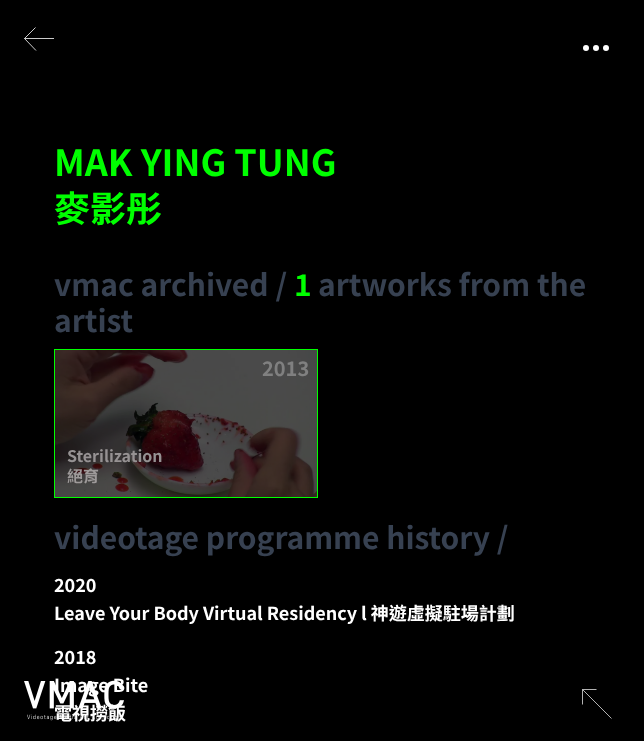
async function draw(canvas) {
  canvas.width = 644
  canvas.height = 741
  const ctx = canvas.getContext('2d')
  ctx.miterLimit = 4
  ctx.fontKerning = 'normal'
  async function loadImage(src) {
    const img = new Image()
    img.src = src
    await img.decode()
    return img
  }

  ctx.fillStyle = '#000'
  ctx.fillRect(0, 0, 644, 741)
  ctx.beginPath()
  ctx.moveTo(36, 50.5)
  ctx.lineTo(24.5, 38.5)
  ctx.lineTo(35.5, 27.5)
  ctx.moveTo(54, 38.5)
  ctx.lineTo(24.5, 38.5)
  ctx.strokeStyle = '#fff'
  ctx.lineWidth = 0.8
  ctx.stroke()
  ctx.fillStyle = '#fff'
  ctx.beginPath()
  ctx.arc(586, 48, 3, 0, 2 * Math.PI)
  ctx.fill()
  ctx.beginPath()
  ctx.arc(596, 48, 3, 0, 2 * Math.PI)
  ctx.fill()
  ctx.beginPath()
  ctx.arc(606, 48, 3, 0, 2 * Math.PI)
  ctx.fill()
  ctx.font = 'bold 36px Noto Sans TC'
  ctx.fillStyle = '#0f0'
  ctx.fillText('MAK YING TUNG', 54, 176)
  ctx.fillText('麥影彤', 54, 222)
  ctx.font = 'bold 30px Noto Sans TC'
  ctx.fillStyle = '#374151'
  ctx.fillText('vmac archived /', 54, 296)
  ctx.fillStyle = '#0f0'
  ctx.fillText('1', 294, 296)
  ctx.fillStyle = '#374151'
  ctx.fillText('artworks from the', 318, 296)
  ctx.fillText('artist', 54, 332)
  ctx.strokeStyle = '#0f0'
  ctx.lineWidth = 1
  ctx.strokeRect(54.5, 349.5, 263, 148)
  ctx.drawImage(await loadImage('image0.png'), 55, 350, 262, 147)
  ctx.font = 'bold 20px Noto Sans TC'
  ctx.fillStyle = '#808080'
  ctx.fillText('2013', 262, 376)
  ctx.font = 'bold 16px Noto Sans TC'
  ctx.fillStyle = '#969293'
  ctx.fillText('Sterilization', 67, 462)
  ctx.fillStyle = '#9e9a9a'
  ctx.fillText('絕育', 67, 482)
  ctx.font = 'bold 30px Noto Sans TC'
  ctx.fillStyle = '#374151'
  ctx.fillText('videotage programme history /', 54, 549)
  ctx.font = 'bold 18px Noto Sans TC'
  ctx.fillStyle = '#fff'
  ctx.fillText('2020', 54, 592)
  ctx.fillText('Leave Your Body Virtual Residency l 神遊虛擬駐場計劃', 54, 620)
  ctx.fillText('2018', 54, 664)
  ctx.fillText('Image Bite', 54, 692)
  ctx.fillText('電視撈飯', 54, 720)
  ctx.beginPath()
  ctx.moveTo(596.5, 689.5)
  ctx.lineTo(582.5, 689.5)
  ctx.lineTo(582.5, 704.5)
  ctx.moveTo(582.5, 689.5)
  ctx.lineTo(611.5, 718.5)
  ctx.strokeStyle = '#fff'
  ctx.lineWidth = 0.7
  ctx.stroke()
  ctx.drawImage(await loadImage('image1.png'), 24, 680, 100, 41)
}

draw(document.querySelector('canvas'))
